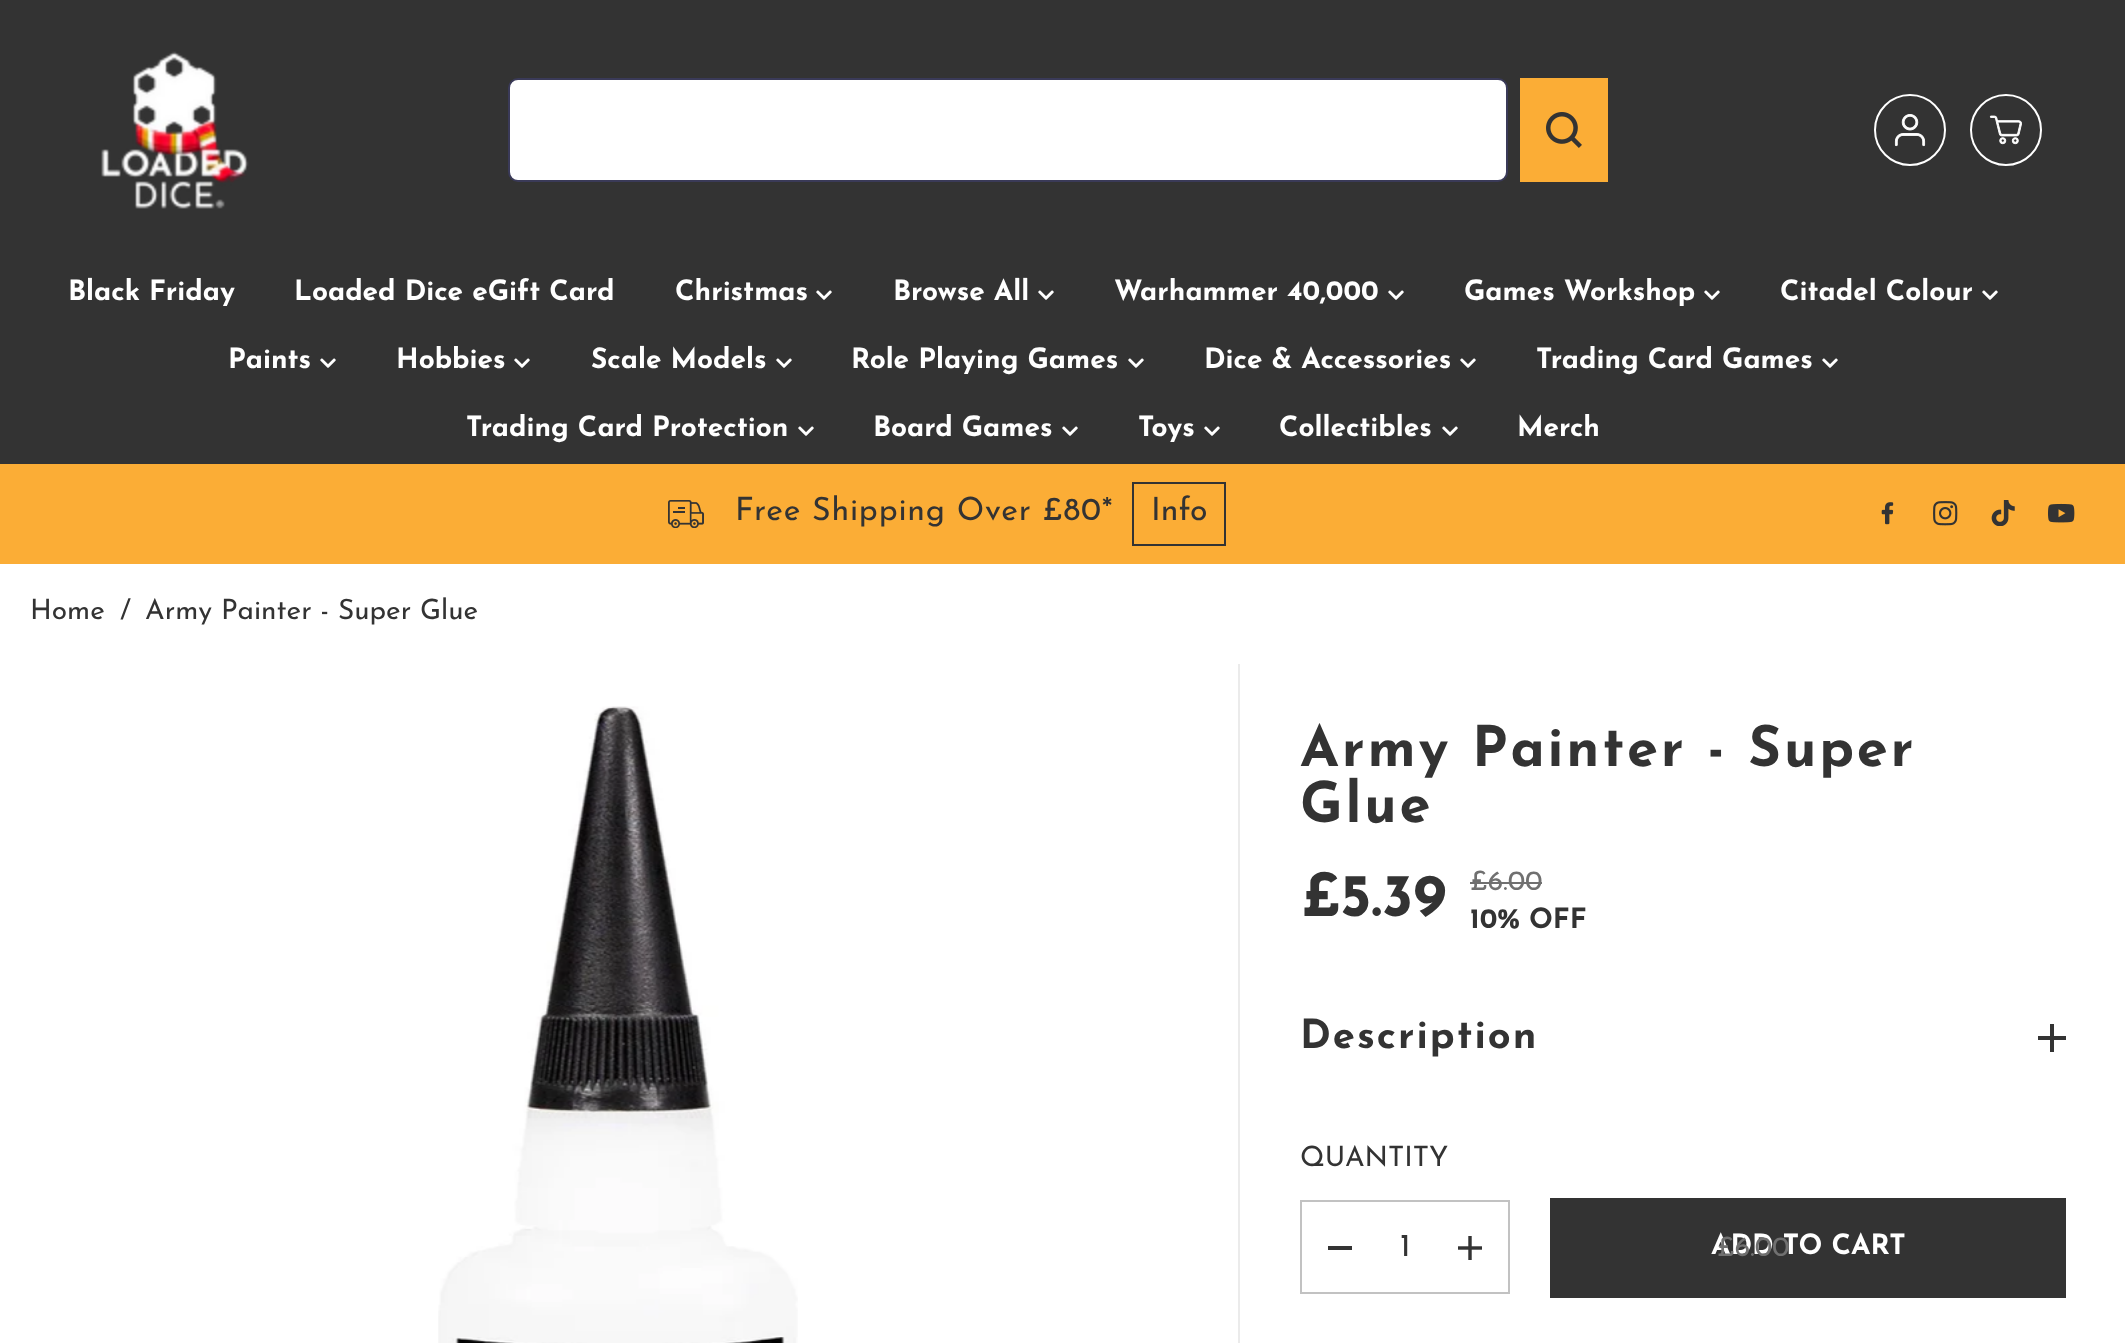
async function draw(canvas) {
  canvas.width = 2125
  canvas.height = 1343
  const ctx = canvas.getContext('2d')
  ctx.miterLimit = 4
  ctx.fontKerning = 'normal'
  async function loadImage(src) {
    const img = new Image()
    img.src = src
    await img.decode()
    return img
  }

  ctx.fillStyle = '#fff'
  ctx.fillRect(0, 0, 2125, 1343)
  ctx.fillStyle = '#333'
  ctx.fillRect(0, 0, 2125, 464)
  ctx.drawImage(await loadImage('image0.png'), 101, 51, 148, 158)
  ctx.fillStyle = '#fff'
  ctx.beginPath()
  ctx.roundRect(509, 79, 998, 102, 9)
  ctx.fill()
  ctx.strokeStyle = '#3a3a58'
  ctx.lineWidth = 2
  ctx.stroke()
  ctx.fillStyle = '#fbad36'
  ctx.fillRect(1520, 78, 88, 104)
  ctx.drawImage(await loadImage('image1.png'), 1546, 112, 36, 36)
  ctx.beginPath()
  ctx.arc(1910, 130, 35, 0, 2 * Math.PI)
  ctx.strokeStyle = '#fff'
  ctx.stroke()
  ctx.drawImage(await loadImage('image2.png'), 1894, 114, 32, 33)
  ctx.beginPath()
  ctx.arc(2006, 130, 35, 0, 2 * Math.PI)
  ctx.stroke()
  ctx.drawImage(await loadImage('image3.png'), 1989, 115, 33, 30)
  ctx.font = 'bold 28px Josefin Sans'
  ctx.fillStyle = '#fff'
  ctx.fillText('Black Friday', 68, 300)
  ctx.fillText('Loaded Dice eGift Card', 294, 300)
  ctx.fillText('Christmas', 675, 300)
  ctx.drawImage(await loadImage('image4.png'), 816, 290, 16, 10)
  ctx.fillText('Browse All', 893, 300)
  ctx.drawImage(await loadImage('image4.png'), 1038, 290, 16, 10)
  ctx.fillText('Warhammer 40,000', 1114, 300)
  ctx.drawImage(await loadImage('image4.png'), 1388, 290, 16, 10)
  ctx.fillText('Games Workshop', 1464, 300)
  ctx.drawImage(await loadImage('image4.png'), 1704, 290, 16, 10)
  ctx.fillText('Citadel Colour', 1780, 300)
  ctx.drawImage(await loadImage('image4.png'), 1982, 290, 16, 10)
  ctx.fillText('Paints', 228, 368)
  ctx.drawImage(await loadImage('image4.png'), 320, 358, 16, 10)
  ctx.fillText('Hobbies', 396, 368)
  ctx.drawImage(await loadImage('image4.png'), 514, 358, 16, 10)
  ctx.fillText('Scale Models', 591, 368)
  ctx.drawImage(await loadImage('image4.png'), 776, 358, 16, 10)
  ctx.fillText('Role Playing Games', 851, 368)
  ctx.drawImage(await loadImage('image4.png'), 1128, 358, 16, 10)
  ctx.fillText('Dice & Accessories', 1204, 368)
  ctx.drawImage(await loadImage('image4.png'), 1460, 358, 16, 10)
  ctx.fillText('Trading Card Games', 1536, 368)
  ctx.drawImage(await loadImage('image4.png'), 1822, 358, 16, 10)
  ctx.fillText('Trading Card Protection', 466, 436)
  ctx.drawImage(await loadImage('image4.png'), 798, 426, 16, 10)
  ctx.fillText('Board Games', 873, 436)
  ctx.drawImage(await loadImage('image4.png'), 1062, 426, 16, 10)
  ctx.fillText('Toys', 1138, 436)
  ctx.drawImage(await loadImage('image4.png'), 1204, 426, 16, 10)
  ctx.fillText('Collectibles', 1279, 436)
  ctx.drawImage(await loadImage('image4.png'), 1442, 426, 16, 10)
  ctx.fillText('Merch', 1517, 436)
  ctx.fillStyle = '#fbad36'
  ctx.fillRect(0, 464, 2125, 100)
  ctx.drawImage(await loadImage('image5.png'), 668, 500, 36, 28)
  ctx.letterSpacing = '0.8px'
  ctx.font = '32px Josefin Sans'
  ctx.fillStyle = '#333'
  ctx.fillText('Free Shipping Over £80*', 735, 520)
  ctx.strokeStyle = '#333'
  ctx.strokeRect(1133, 483, 92, 62)
  ctx.letterSpacing = '0px'
  ctx.fillText('Info', 1151, 520)
  ctx.drawImage(await loadImage('image6.png'), 1881, 502, 13, 23)
  ctx.drawImage(await loadImage('image7.png'), 1933, 501, 25, 25)
  ctx.drawImage(await loadImage('image8.png'), 1991, 500, 24, 26)
  ctx.drawImage(await loadImage('image9.png'), 2048, 503, 27, 20)
  ctx.font = '28px Josefin Sans'
  ctx.fillText('Home', 30, 619)
  ctx.fillText('/', 120, 619)
  ctx.fillText('Army Painter - Super Glue', 145, 619)
  ctx.fillStyle = '#ebebeb'
  ctx.fillRect(1238, 664, 2, 679)
  ctx.drawImage(await loadImage('image10.png'), 438, 706, 360, 637)
  ctx.letterSpacing = '2.75px'
  ctx.font = 'bold 56px Josefin Sans'
  ctx.fillStyle = '#333'
  ctx.fillText('Army Painter - Super', 1300, 766)
  ctx.fillText('Glue', 1300, 822)
  ctx.letterSpacing = '0px'
  ctx.font = 'bold 60px Josefin Sans'
  ctx.fillText('£5.39', 1300, 916)
  ctx.font = '28px Josefin Sans'
  ctx.fillStyle = '#707070'
  ctx.fillText('£6.00', 1470, 890)
  ctx.fillRect(1470, 882, 72, 2)
  ctx.font = 'bold 28px Josefin Sans'
  ctx.fillStyle = '#333'
  ctx.fillText('10% OFF', 1470, 928)
  ctx.letterSpacing = '2px'
  ctx.font = 'bold 40px Josefin Sans'
  ctx.fillText('Description', 1300, 1048)
  ctx.fillRect(2050, 1024, 4, 28)
  ctx.fillRect(2038, 1036, 28, 4)
  ctx.letterSpacing = '0px'
  ctx.font = '28px Josefin Sans'
  ctx.fillText('QUANTITY', 1300, 1166)
  ctx.strokeStyle = '#c2c2c2'
  ctx.strokeRect(1301, 1201, 208, 92)
  ctx.fillRect(1328, 1246, 24, 4)
  ctx.font = '32px Josefin Sans'
  ctx.fillText('1', 1400, 1256)
  ctx.drawImage(await loadImage('image11.png'), 1458, 1236, 24, 24)
  ctx.fillRect(1550, 1198, 516, 100)
  ctx.font = 'bold 28px Josefin Sans'
  ctx.fillStyle = '#fff'
  ctx.fillText('ADD TO CART', 1711, 1254)
  ctx.font = '28px Josefin Sans'
  ctx.fillStyle = '#707070'
  ctx.fillText('£6.00', 1717, 1256)
}

draw(document.querySelector('canvas'))
